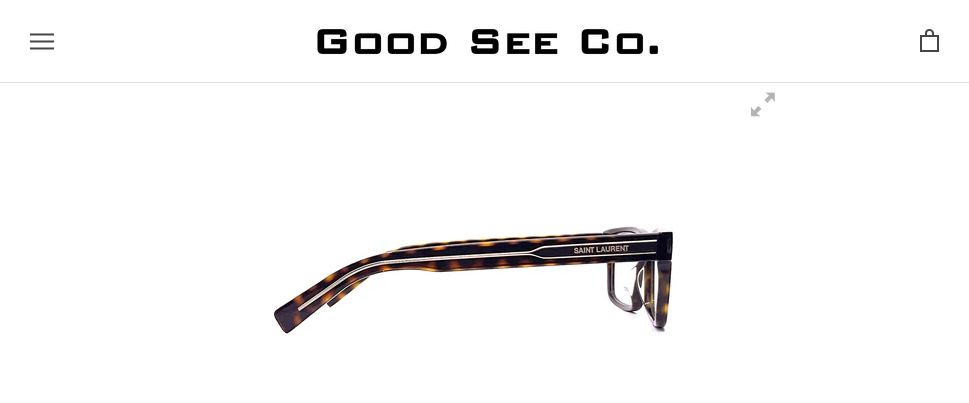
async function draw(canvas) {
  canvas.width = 969
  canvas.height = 403
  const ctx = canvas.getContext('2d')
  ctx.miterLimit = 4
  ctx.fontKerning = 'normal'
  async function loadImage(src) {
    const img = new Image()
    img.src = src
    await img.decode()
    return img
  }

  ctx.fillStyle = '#fff'
  ctx.fillRect(0, 0, 969, 403)
  ctx.fillStyle = '#e3e3e3'
  ctx.fillRect(0, 82, 969, 1)
  ctx.drawImage(await loadImage('image0.png'), 30, 33, 24, 17)
  ctx.drawImage(await loadImage('image1.png'), 317, 26, 343, 30)
  ctx.drawImage(await loadImage('image2.png'), 920, 29, 19, 23)
  ctx.drawImage(await loadImage('image3.png'), 751, 92, 24, 25)
  ctx.drawImage(await loadImage('image4.png'), 273, 226, 400, 109)
}

draw(document.querySelector('canvas'))
